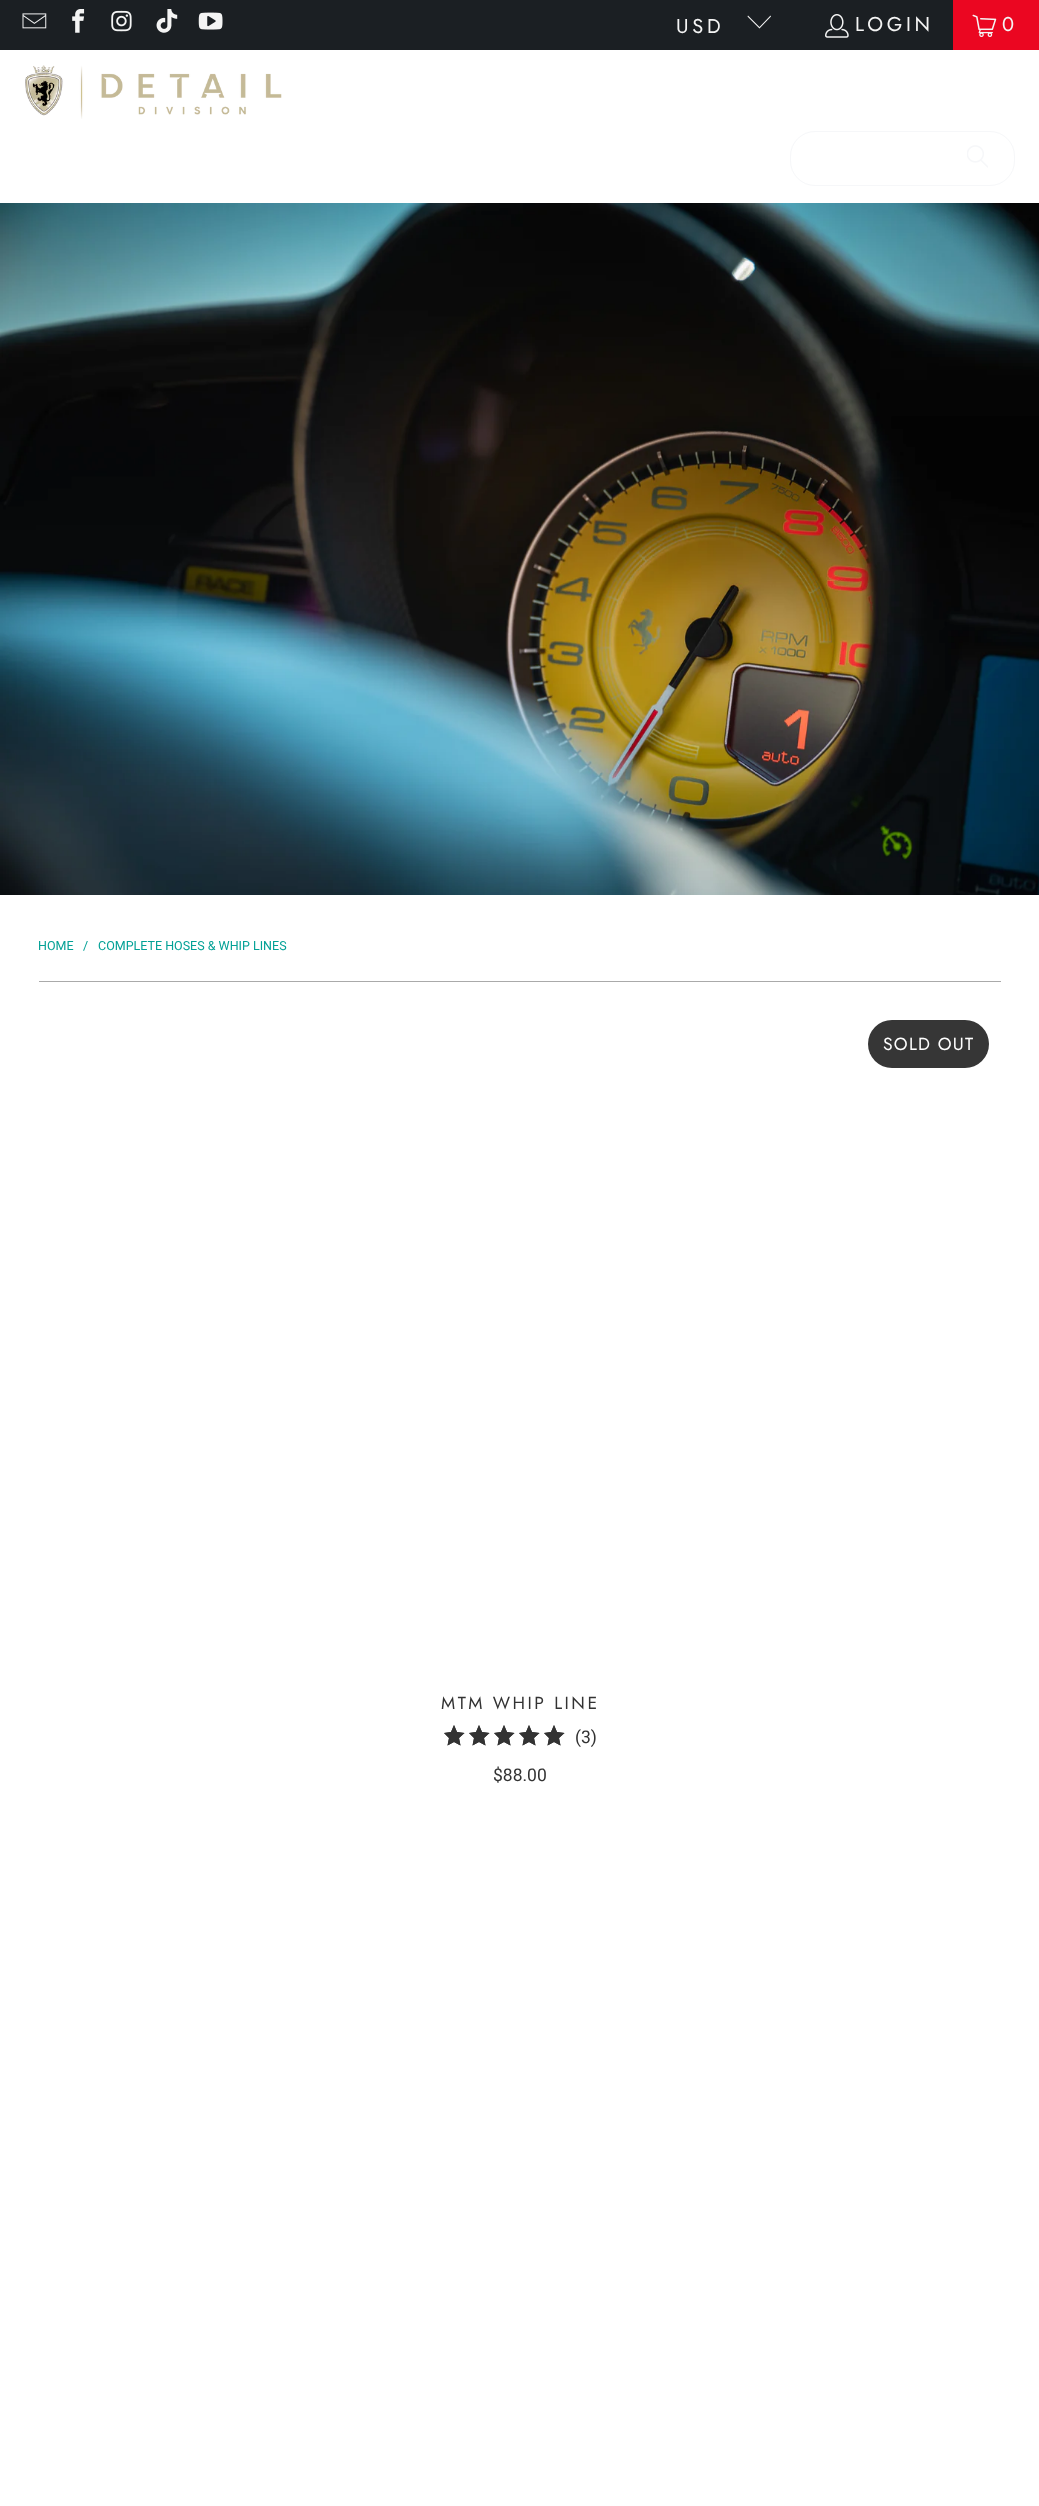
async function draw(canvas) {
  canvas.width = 1039
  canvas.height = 2506
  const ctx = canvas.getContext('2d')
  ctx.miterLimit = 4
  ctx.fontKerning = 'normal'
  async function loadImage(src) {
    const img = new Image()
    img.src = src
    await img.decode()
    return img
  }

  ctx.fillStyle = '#fff'
  ctx.fillRect(0, 0, 1039, 2506)
  ctx.fillStyle = '#1b1f23'
  ctx.fillRect(0, 0, 953, 50)
  ctx.drawImage(await loadImage('image0.png'), 22, 13, 25, 16)
  ctx.drawImage(await loadImage('image1.png'), 72, 9, 13, 24)
  ctx.drawImage(await loadImage('image2.png'), 111, 10, 21, 22)
  ctx.drawImage(await loadImage('image3.png'), 156, 9, 22, 24)
  ctx.drawImage(await loadImage('image4.png'), 198, 12, 25, 18)
  ctx.letterSpacing = '3.75px'
  ctx.font = '20px Jost'
  ctx.fillStyle = '#f4f4f4'
  ctx.fillText('USD', 676, 33)
  ctx.beginPath()
  ctx.moveTo(759.5, 28.5)
  ctx.lineTo(747.5, 16.5)
  ctx.lineTo(748, 15.5)
  ctx.lineTo(759.5, 27)
  ctx.lineTo(770.5, 15.5)
  ctx.lineTo(771, 16.5)
  ctx.closePath()
  ctx.fill()
  ctx.drawImage(await loadImage('image5.png'), 825, 14, 24, 24)
  ctx.fillText('LOGIN', 855, 31)
  ctx.fillStyle = '#eb0621'
  ctx.fillRect(953, 0, 86, 50)
  ctx.drawImage(await loadImage('image6.png'), 972, 14, 25, 23)
  ctx.fillStyle = '#f4f4f4'
  ctx.fillText('0', 1002, 31)
  ctx.drawImage(await loadImage('image7.png'), 25, 65, 257, 54)
  ctx.beginPath()
  ctx.roundRect(790.5, 131.5, 224, 54, 24.5)
  ctx.strokeStyle = '#f6f7f9'
  ctx.stroke()
  ctx.drawImage(await loadImage('image8.png'), 967, 145, 21, 23)
  ctx.drawImage(await loadImage('image9.png'), 0, 203, 1039, 692)
  ctx.letterSpacing = '0px'
  ctx.font = '12.5px Roboto'
  ctx.fillStyle = '#03a196'
  ctx.fillText('HOME', 38, 950)
  ctx.fillText('/', 83, 950)
  ctx.fillText('COMPLETE HOSES & WHIP LINES', 98, 950)
  ctx.fillStyle = '#aaa'
  ctx.fillRect(39, 981, 962, 1)
  ctx.fillStyle = '#363636'
  ctx.beginPath()
  ctx.roundRect(868, 1020, 121, 48, 24)
  ctx.fill()
  ctx.letterSpacing = '1.25px'
  ctx.font = '17.5px Jost'
  ctx.fillStyle = '#fff'
  ctx.fillText('SOLD OUT', 883, 1050)
  ctx.letterSpacing = '2.5px'
  ctx.fillStyle = '#333'
  ctx.fillText('MTM WHIP LINE', 441, 1709)
  ctx.beginPath()
  ctx.moveTo(454, 1725)
  ctx.lineTo(451, 1732)
  ctx.lineTo(444, 1733)
  ctx.lineTo(449, 1738)
  ctx.lineTo(447.5, 1745.5)
  ctx.lineTo(454, 1742)
  ctx.lineTo(460.5, 1745.5)
  ctx.lineTo(459, 1738)
  ctx.lineTo(464.5, 1733)
  ctx.lineTo(457, 1732)
  ctx.closePath()
  ctx.fill()
  ctx.save()
  ctx.beginPath()
  ctx.moveTo(454, 1725)
  ctx.lineTo(457, 1732)
  ctx.lineTo(464.5, 1733)
  ctx.lineTo(459, 1738)
  ctx.lineTo(460.5, 1745.5)
  ctx.lineTo(454, 1742)
  ctx.lineTo(447.5, 1745.5)
  ctx.lineTo(449, 1738)
  ctx.lineTo(444, 1733)
  ctx.lineTo(451, 1732)
  ctx.closePath()
  ctx.clip()
  ctx.beginPath()
  ctx.moveTo(454, 1725)
  ctx.lineTo(457, 1732)
  ctx.lineTo(464.5, 1733)
  ctx.lineTo(459, 1738)
  ctx.lineTo(460.5, 1745.5)
  ctx.lineTo(454, 1742)
  ctx.lineTo(447.5, 1745.5)
  ctx.lineTo(449, 1738)
  ctx.lineTo(444, 1733)
  ctx.lineTo(451, 1732)
  ctx.closePath()
  ctx.strokeStyle = '#333'
  ctx.lineWidth = 2.9
  ctx.lineCap = 'round'
  ctx.lineJoin = 'round'
  ctx.stroke()
  ctx.restore()
  ctx.beginPath()
  ctx.moveTo(479, 1725)
  ctx.lineTo(476, 1732)
  ctx.lineTo(469, 1733)
  ctx.lineTo(474, 1738)
  ctx.lineTo(472.5, 1745.5)
  ctx.lineTo(479, 1742)
  ctx.lineTo(485.5, 1745.5)
  ctx.lineTo(484, 1738)
  ctx.lineTo(489.5, 1733)
  ctx.lineTo(482, 1732)
  ctx.closePath()
  ctx.fill()
  ctx.save()
  ctx.beginPath()
  ctx.moveTo(479, 1725)
  ctx.lineTo(482, 1732)
  ctx.lineTo(489.5, 1733)
  ctx.lineTo(484, 1738)
  ctx.lineTo(485.5, 1745.5)
  ctx.lineTo(479, 1742)
  ctx.lineTo(472.5, 1745.5)
  ctx.lineTo(474, 1738)
  ctx.lineTo(469, 1733)
  ctx.lineTo(476, 1732)
  ctx.closePath()
  ctx.clip()
  ctx.beginPath()
  ctx.moveTo(479, 1725)
  ctx.lineTo(482, 1732)
  ctx.lineTo(489.5, 1733)
  ctx.lineTo(484, 1738)
  ctx.lineTo(485.5, 1745.5)
  ctx.lineTo(479, 1742)
  ctx.lineTo(472.5, 1745.5)
  ctx.lineTo(474, 1738)
  ctx.lineTo(469, 1733)
  ctx.lineTo(476, 1732)
  ctx.closePath()
  ctx.strokeStyle = '#333'
  ctx.lineWidth = 2.9
  ctx.lineCap = 'round'
  ctx.lineJoin = 'round'
  ctx.stroke()
  ctx.restore()
  ctx.beginPath()
  ctx.moveTo(504, 1725)
  ctx.lineTo(501, 1732)
  ctx.lineTo(494, 1733)
  ctx.lineTo(499, 1738)
  ctx.lineTo(497.5, 1745.5)
  ctx.lineTo(504, 1742)
  ctx.lineTo(510.5, 1745.5)
  ctx.lineTo(509, 1738)
  ctx.lineTo(514.5, 1733)
  ctx.lineTo(507, 1732)
  ctx.closePath()
  ctx.fill()
  ctx.save()
  ctx.beginPath()
  ctx.moveTo(504, 1725)
  ctx.lineTo(507, 1732)
  ctx.lineTo(514.5, 1733)
  ctx.lineTo(509, 1738)
  ctx.lineTo(510.5, 1745.5)
  ctx.lineTo(504, 1742)
  ctx.lineTo(497.5, 1745.5)
  ctx.lineTo(499, 1738)
  ctx.lineTo(494, 1733)
  ctx.lineTo(501, 1732)
  ctx.closePath()
  ctx.clip()
  ctx.beginPath()
  ctx.moveTo(504, 1725)
  ctx.lineTo(507, 1732)
  ctx.lineTo(514.5, 1733)
  ctx.lineTo(509, 1738)
  ctx.lineTo(510.5, 1745.5)
  ctx.lineTo(504, 1742)
  ctx.lineTo(497.5, 1745.5)
  ctx.lineTo(499, 1738)
  ctx.lineTo(494, 1733)
  ctx.lineTo(501, 1732)
  ctx.closePath()
  ctx.strokeStyle = '#333'
  ctx.lineWidth = 2.9
  ctx.lineCap = 'round'
  ctx.lineJoin = 'round'
  ctx.stroke()
  ctx.restore()
  ctx.beginPath()
  ctx.moveTo(529, 1725)
  ctx.lineTo(526, 1732)
  ctx.lineTo(519, 1733)
  ctx.lineTo(524, 1738)
  ctx.lineTo(522.5, 1745.5)
  ctx.lineTo(529, 1742)
  ctx.lineTo(535.5, 1745.5)
  ctx.lineTo(534, 1738)
  ctx.lineTo(539.5, 1733)
  ctx.lineTo(532, 1732)
  ctx.closePath()
  ctx.fill()
  ctx.save()
  ctx.beginPath()
  ctx.moveTo(529, 1725)
  ctx.lineTo(532, 1732)
  ctx.lineTo(539.5, 1733)
  ctx.lineTo(534, 1738)
  ctx.lineTo(535.5, 1745.5)
  ctx.lineTo(529, 1742)
  ctx.lineTo(522.5, 1745.5)
  ctx.lineTo(524, 1738)
  ctx.lineTo(519, 1733)
  ctx.lineTo(526, 1732)
  ctx.closePath()
  ctx.clip()
  ctx.beginPath()
  ctx.moveTo(529, 1725)
  ctx.lineTo(532, 1732)
  ctx.lineTo(539.5, 1733)
  ctx.lineTo(534, 1738)
  ctx.lineTo(535.5, 1745.5)
  ctx.lineTo(529, 1742)
  ctx.lineTo(522.5, 1745.5)
  ctx.lineTo(524, 1738)
  ctx.lineTo(519, 1733)
  ctx.lineTo(526, 1732)
  ctx.closePath()
  ctx.strokeStyle = '#333'
  ctx.lineWidth = 2.9
  ctx.lineCap = 'round'
  ctx.lineJoin = 'round'
  ctx.stroke()
  ctx.restore()
  ctx.beginPath()
  ctx.moveTo(554, 1725)
  ctx.lineTo(551, 1732)
  ctx.lineTo(544, 1733)
  ctx.lineTo(549, 1738)
  ctx.lineTo(547.5, 1745.5)
  ctx.lineTo(554, 1742)
  ctx.lineTo(560.5, 1745.5)
  ctx.lineTo(559, 1738)
  ctx.lineTo(564.5, 1733)
  ctx.lineTo(557, 1732)
  ctx.closePath()
  ctx.fill()
  ctx.save()
  ctx.beginPath()
  ctx.moveTo(554, 1725)
  ctx.lineTo(557, 1732)
  ctx.lineTo(564.5, 1733)
  ctx.lineTo(559, 1738)
  ctx.lineTo(560.5, 1745.5)
  ctx.lineTo(554, 1742)
  ctx.lineTo(547.5, 1745.5)
  ctx.lineTo(549, 1738)
  ctx.lineTo(544, 1733)
  ctx.lineTo(551, 1732)
  ctx.closePath()
  ctx.clip()
  ctx.beginPath()
  ctx.moveTo(554, 1725)
  ctx.lineTo(557, 1732)
  ctx.lineTo(564.5, 1733)
  ctx.lineTo(559, 1738)
  ctx.lineTo(560.5, 1745.5)
  ctx.lineTo(554, 1742)
  ctx.lineTo(547.5, 1745.5)
  ctx.lineTo(549, 1738)
  ctx.lineTo(544, 1733)
  ctx.lineTo(551, 1732)
  ctx.closePath()
  ctx.strokeStyle = '#333'
  ctx.lineWidth = 2.9
  ctx.lineCap = 'round'
  ctx.lineJoin = 'round'
  ctx.stroke()
  ctx.restore()
  ctx.letterSpacing = '0px'
  ctx.font = '17.5px Roboto'
  ctx.fillText('(3)', 575, 1743)
  ctx.fillText('$88.00', 493, 1781)
}

draw(document.querySelector('canvas'))
